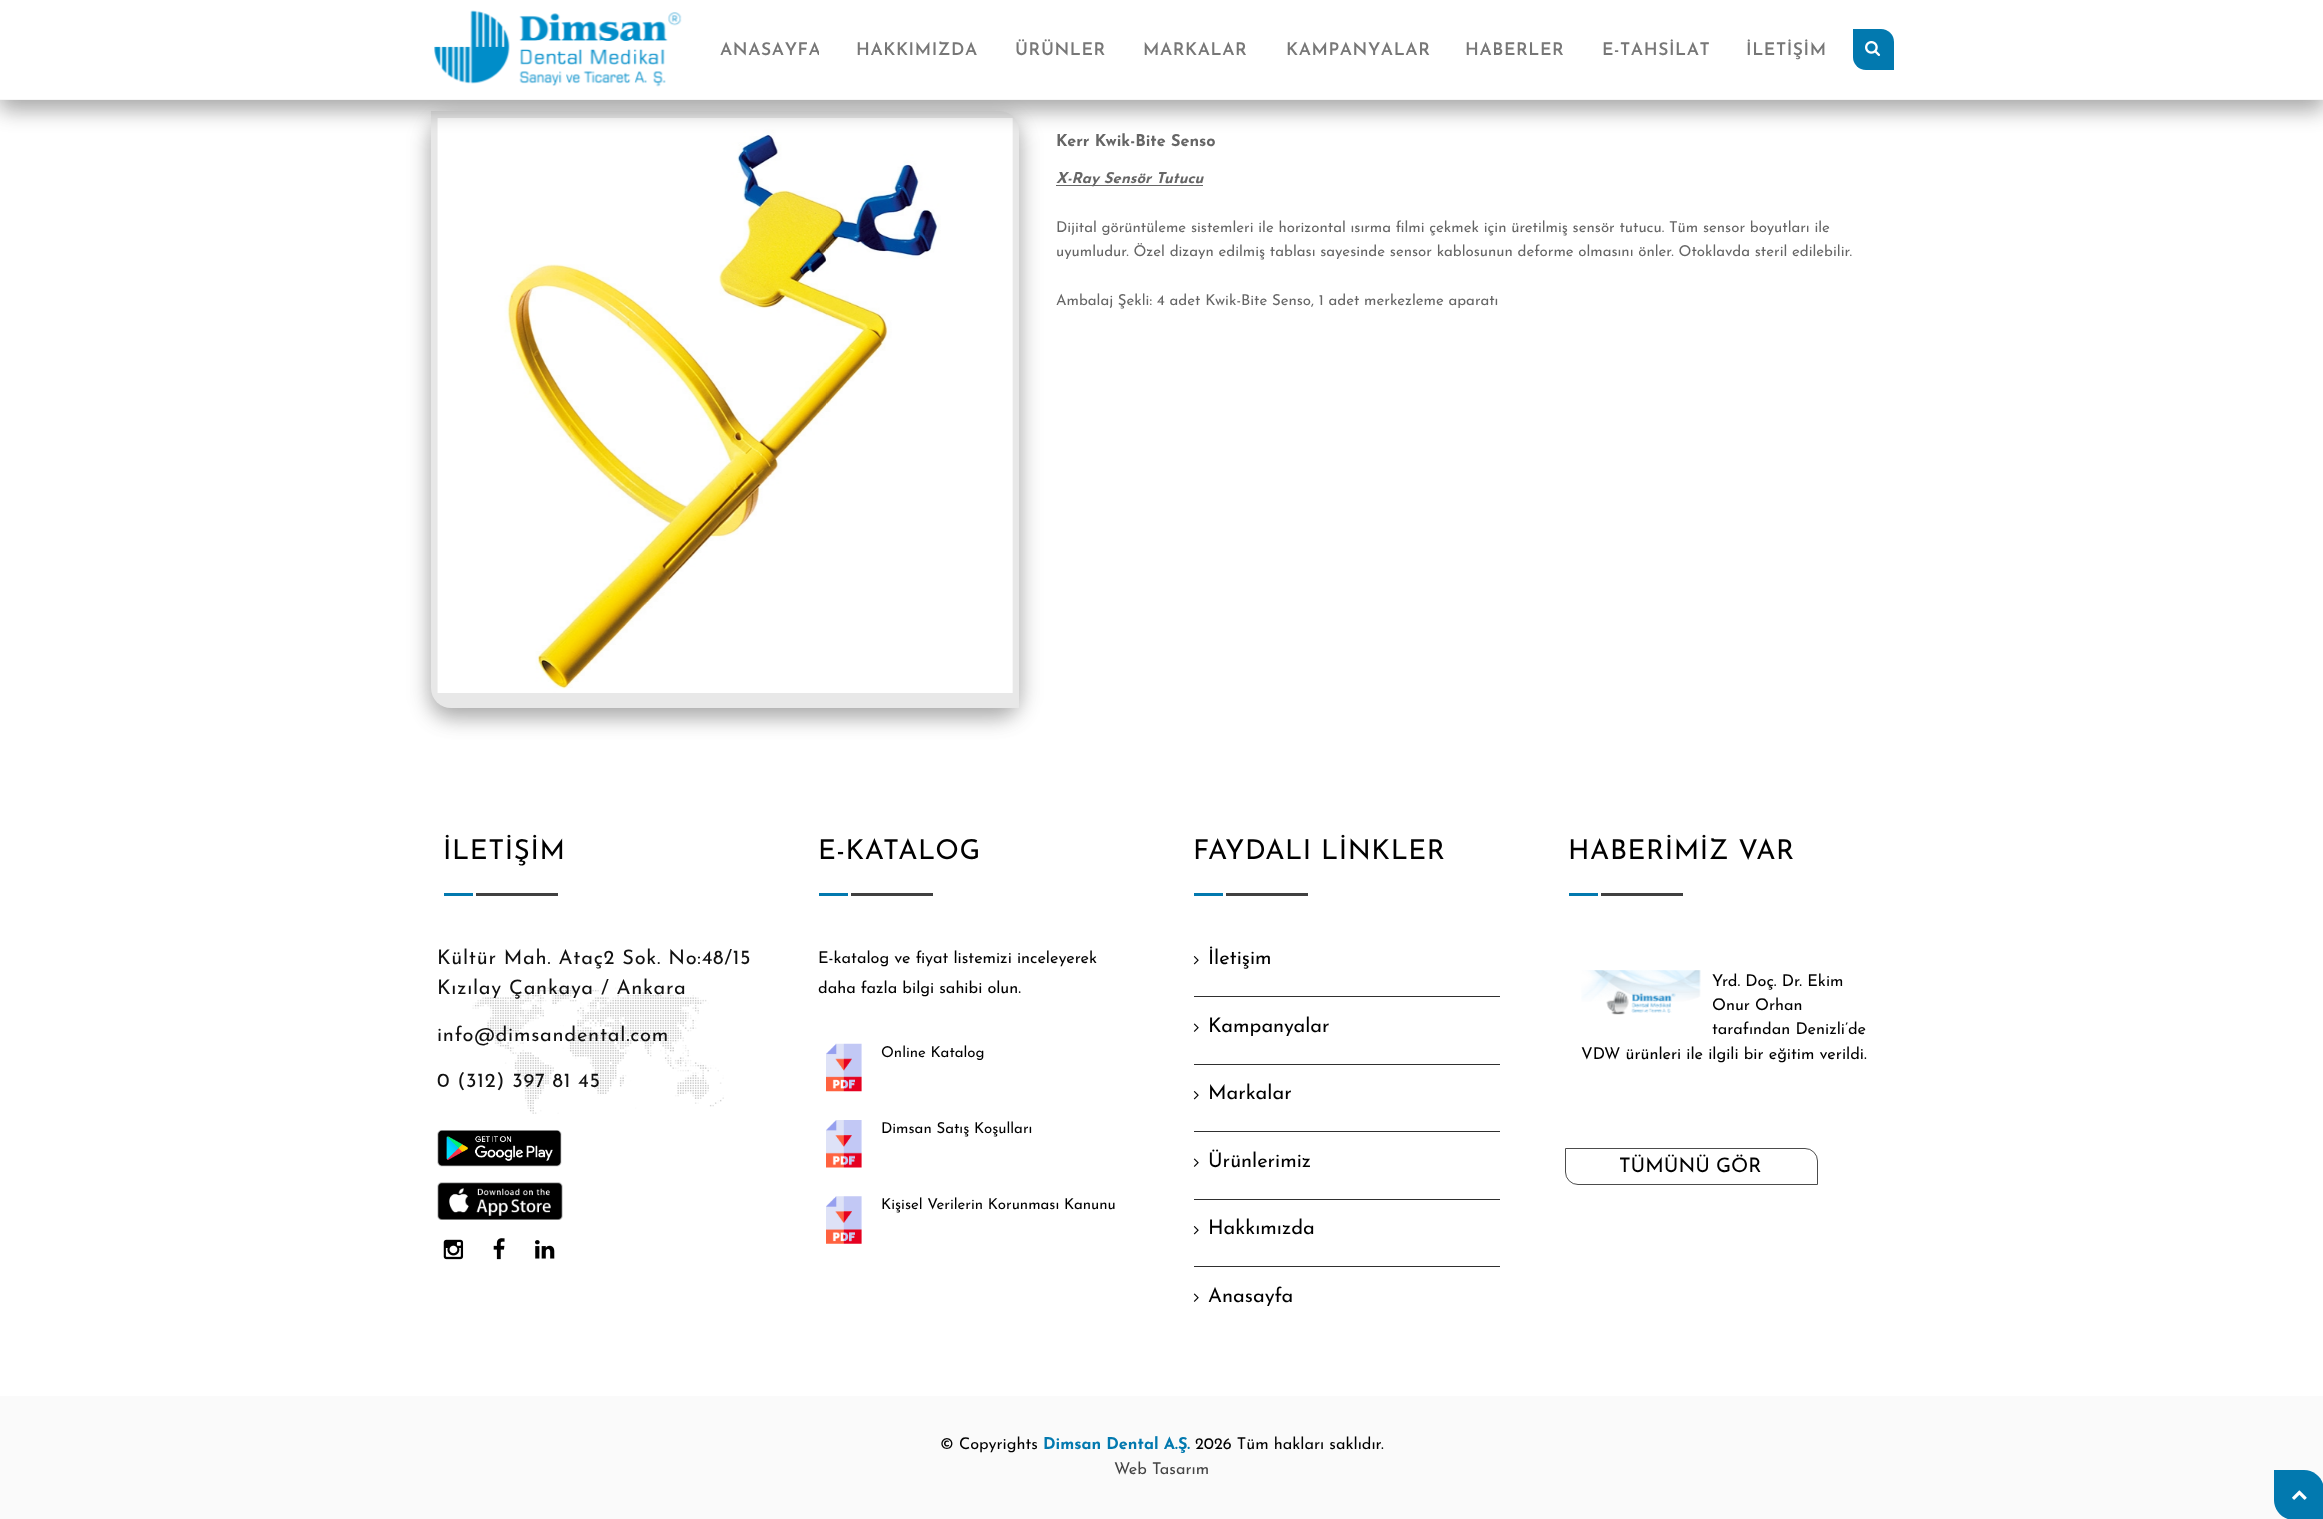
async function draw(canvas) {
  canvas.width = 2323
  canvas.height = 1519
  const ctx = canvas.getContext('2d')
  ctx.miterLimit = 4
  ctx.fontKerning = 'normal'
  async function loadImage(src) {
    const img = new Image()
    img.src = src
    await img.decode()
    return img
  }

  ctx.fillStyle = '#fff'
  ctx.fillRect(0, 0, 2323, 1519)
  ctx.fillStyle = '#00000030'
  ctx.filter = 'blur(12.5px)'
  ctx.beginPath()
  ctx.roundRect(431, 119, 588, 596, 20)
  ctx.fill()
  ctx.filter = 'none'
  ctx.fillStyle = '#00000033'
  ctx.filter = 'blur(10px)'
  ctx.beginPath()
  ctx.roundRect(431, 121, 588, 597, 20)
  ctx.fill()
  ctx.filter = 'none'
  ctx.fillStyle = '#e8e8e8'
  ctx.beginPath()
  ctx.roundRect(431, 111, 588, 597, [0, 20, 0, 20])
  ctx.fill()
  ctx.drawImage(await loadImage('image2.png'), 437, 118, 576, 575)
  ctx.fillStyle = '#00000030'
  ctx.filter = 'blur(12.5px)'
  ctx.beginPath()
  ctx.rect(0, 8, 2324, 100)
  ctx.fill()
  ctx.filter = 'none'
  ctx.fillStyle = '#00000033'
  ctx.filter = 'blur(10px)'
  ctx.beginPath()
  ctx.rect(0, 10, 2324, 100)
  ctx.fill()
  ctx.filter = 'none'
  ctx.fillStyle = '#fff'
  ctx.fillRect(0, 0, 2323, 99)
  ctx.fillStyle = '#f7f7f7'
  ctx.fillRect(0, 99, 2323, 1)
  ctx.drawImage(await loadImage('image0.png'), 434, 10, 248, 77)
  ctx.save()
  ctx.beginPath()
  ctx.rect(720, 38, 99, 26)
  ctx.clip()
  ctx.letterSpacing = '0.6px'
  ctx.font = '600 17.5px Josefin Sans'
  ctx.fillStyle = '#777'
  ctx.fillText('ANASAYFA', 720, 55)
  ctx.restore()
  ctx.letterSpacing = '0.6px'
  ctx.font = '600 17.5px Josefin Sans'
  ctx.fillStyle = '#777'
  ctx.fillText('HAKKIMIZDA', 856, 55)
  ctx.fillText('ÜRÜNLER', 1015, 55)
  ctx.fillText('MARKALAR', 1143, 55)
  ctx.fillText('KAMPANYALAR', 1286, 55)
  ctx.fillText('HABERLER', 1465, 55)
  ctx.fillText('E-TAHSİLAT', 1602, 55)
  ctx.fillText('İLETİŞİM', 1746, 55)
  ctx.fillStyle = '#0279af'
  ctx.beginPath()
  ctx.roundRect(1853, 29, 41, 41, [0, 13, 0, 13])
  ctx.fill()
  ctx.drawImage(await loadImage('image1.png'), 1865, 41, 16, 15)
  ctx.letterSpacing = '0px'
  ctx.font = 'bold 16.25px Josefin Sans'
  ctx.fillStyle = '#666'
  ctx.fillText('Kerr Kwik-Bite Senso', 1056, 146)
  ctx.fillRect(1056, 185, 147, 1)
  ctx.font = 'italic bold 15px Josefin Sans'
  ctx.fillText('X-Ray Sensör Tutucu', 1056, 183)
  ctx.font = '15px Josefin Sans'
  ctx.fillText('Dijital görüntüleme sistemleri ile horizontal ısırma filmi çekmek için üretilmiş sensör tutucu. Tüm sensor boyutları ile', 1056, 232)
  ctx.fillText('uyumludur. Özel dizayn edilmiş tablası sayesinde sensor kablosunun deforme olmasını önler. Otoklavda steril edilebilir.', 1056, 256)
  ctx.fillText('Ambalaj Şekli: 4 adet Kwik-Bite Senso, 1 adet merkezleme aparatı', 1056, 305)
  ctx.drawImage(await loadImage('image3.png'), 472, 987, 252, 127)
  ctx.letterSpacing = '0.6px'
  ctx.font = '27.5px Josefin Sans'
  ctx.fillStyle = '#000'
  ctx.fillText('İLETİŞİM', 443, 859)
  ctx.fillStyle = '#0279af'
  ctx.fillRect(444, 893, 29, 3)
  ctx.fillStyle = '#404040'
  ctx.fillRect(476, 893, 82, 3)
  ctx.letterSpacing = '0.75px'
  ctx.font = '20px Josefin Sans'
  ctx.fillStyle = '#111'
  ctx.fillText('Kültür Mah. Ataç2 Sok. No:48/15', 437, 964)
  ctx.fillText('Kızılay Çankaya / Ankara', 437, 994)
  ctx.fillText('info@dimsandental.com', 437, 1041)
  ctx.fillText('0 (312) 397 81 45', 437, 1087)
  ctx.drawImage(await loadImage('image4.png'), 437, 1130, 125, 37)
  ctx.drawImage(await loadImage('image5.png'), 437, 1182, 126, 38)
  ctx.drawImage(await loadImage('image6.png'), 443, 1239, 21, 21)
  ctx.drawImage(await loadImage('image7.png'), 493, 1238, 12, 22)
  ctx.drawImage(await loadImage('image8.png'), 535, 1240, 20, 19)
  ctx.letterSpacing = '0.6px'
  ctx.font = '27.5px Josefin Sans'
  ctx.fillStyle = '#000'
  ctx.fillText('E-KATALOG', 818, 859)
  ctx.fillStyle = '#0279af'
  ctx.fillRect(819, 893, 29, 3)
  ctx.fillStyle = '#404040'
  ctx.fillRect(851, 893, 82, 3)
  ctx.letterSpacing = '0px'
  ctx.font = '16.25px Josefin Sans'
  ctx.fillStyle = '#000'
  ctx.fillText('E-katalog ve fiyat listemizi inceleyerek', 818, 963)
  ctx.fillText('daha fazla bilgi sahibi olun.', 818, 993)
  ctx.drawImage(await loadImage('image9.png'), 826, 1043, 36, 49)
  ctx.font = '15px Josefin Sans'
  ctx.fillText('Online Katalog', 881, 1057)
  ctx.drawImage(await loadImage('image10.png'), 826, 1120, 36, 48)
  ctx.fillText('Dimsan Satış Koşulları', 881, 1133)
  ctx.drawImage(await loadImage('image11.png'), 826, 1196, 36, 48)
  ctx.fillText('Kişisel Verilerin Korunması Kanunu', 881, 1209)
  ctx.letterSpacing = '0.6px'
  ctx.font = '27.5px Josefin Sans'
  ctx.fillText('FAYDALI LİNKLER', 1193, 859)
  ctx.fillStyle = '#0279af'
  ctx.fillRect(1194, 893, 29, 3)
  ctx.fillStyle = '#404040'
  ctx.fillRect(1226, 893, 82, 3)
  ctx.drawImage(await loadImage('image12.png'), 1193, 956, 6, 9)
  ctx.letterSpacing = '0px'
  ctx.font = '20px Josefin Sans'
  ctx.fillStyle = '#000'
  ctx.fillText('İletişim', 1208, 964)
  ctx.fillStyle = '#2f2f2f'
  ctx.fillRect(1194, 996, 306, 1)
  ctx.drawImage(await loadImage('image13.png'), 1193, 1023, 6, 9)
  ctx.fillStyle = '#000'
  ctx.fillText('Kampanyalar', 1208, 1032)
  ctx.fillStyle = '#2f2f2f'
  ctx.fillRect(1194, 1064, 306, 1)
  ctx.drawImage(await loadImage('image12.png'), 1193, 1091, 6, 9)
  ctx.fillStyle = '#000'
  ctx.fillText('Markalar', 1208, 1099)
  ctx.fillStyle = '#2f2f2f'
  ctx.fillRect(1194, 1131, 306, 1)
  ctx.drawImage(await loadImage('image13.png'), 1193, 1158, 6, 9)
  ctx.fillStyle = '#000'
  ctx.fillText('Ürünlerimiz', 1208, 1167)
  ctx.fillStyle = '#2f2f2f'
  ctx.fillRect(1194, 1199, 306, 1)
  ctx.drawImage(await loadImage('image12.png'), 1193, 1226, 6, 9)
  ctx.fillStyle = '#000'
  ctx.fillText('Hakkımızda', 1208, 1234)
  ctx.fillStyle = '#2f2f2f'
  ctx.fillRect(1194, 1266, 306, 1)
  ctx.drawImage(await loadImage('image13.png'), 1193, 1293, 6, 9)
  ctx.fillStyle = '#000'
  ctx.fillText('Anasayfa', 1208, 1302)
  ctx.letterSpacing = '0.6px'
  ctx.font = '27.5px Josefin Sans'
  ctx.fillText('HABERİMİZ VAR', 1568, 859)
  ctx.fillStyle = '#0279af'
  ctx.fillRect(1569, 893, 29, 3)
  ctx.fillStyle = '#404040'
  ctx.fillRect(1601, 893, 82, 3)
  ctx.drawImage(await loadImage('image14.png'), 1581, 970, 120, 45)
  ctx.letterSpacing = '0px'
  ctx.font = '16.25px Josefin Sans'
  ctx.fillStyle = '#000'
  ctx.fillText('Yrd. Doç. Dr. Ekim', 1712, 986)
  ctx.fillText('Onur Orhan', 1712, 1010)
  ctx.fillText('tarafından Denizli’de', 1712, 1034)
  ctx.fillText('VDW ürünleri ile ilgili bir eğitim verildi.', 1581, 1059)
  ctx.beginPath()
  ctx.roundRect(1565.5, 1148.5, 252, 36, [0, 12.5, 0, 12.5])
  ctx.strokeStyle = '#4c4c4c'
  ctx.stroke()
  ctx.font = '20px Josefin Sans'
  ctx.fillText('TÜMÜNÜ GÖR', 1619, 1172)
  ctx.fillStyle = '#fafafa'
  ctx.fillRect(0, 1396, 2323, 123)
  ctx.font = '16.25px Josefin Sans'
  ctx.fillStyle = '#000'
  ctx.fillText('© Copyrights', 940, 1449)
  ctx.font = 'bold 16.25px Josefin Sans'
  ctx.fillStyle = '#0279af'
  ctx.fillText('Dimsan Dental A.Ş.', 1043, 1449)
  ctx.font = '16.25px Josefin Sans'
  ctx.fillStyle = '#000'
  ctx.fillText('2026 Tüm hakları saklıdır.', 1195, 1449)
  ctx.fillStyle = '#444'
  ctx.fillText('Web Tasarım', 1114, 1474)
  ctx.fillStyle = '#0279af'
  ctx.beginPath()
  ctx.moveTo(2274, 1470)
  ctx.lineTo(2304, 1470)
  ctx.bezierCurveTo(2315, 1470, 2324, 1479, 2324, 1490)
  ctx.lineTo(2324, 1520)
  ctx.lineTo(2294, 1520)
  ctx.bezierCurveTo(2283, 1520, 2274, 1511, 2274, 1500)
  ctx.closePath()
  ctx.fill()
  ctx.drawImage(await loadImage('image15.png'), 2292, 1490, 15, 10)
}

draw(document.querySelector('canvas'))
